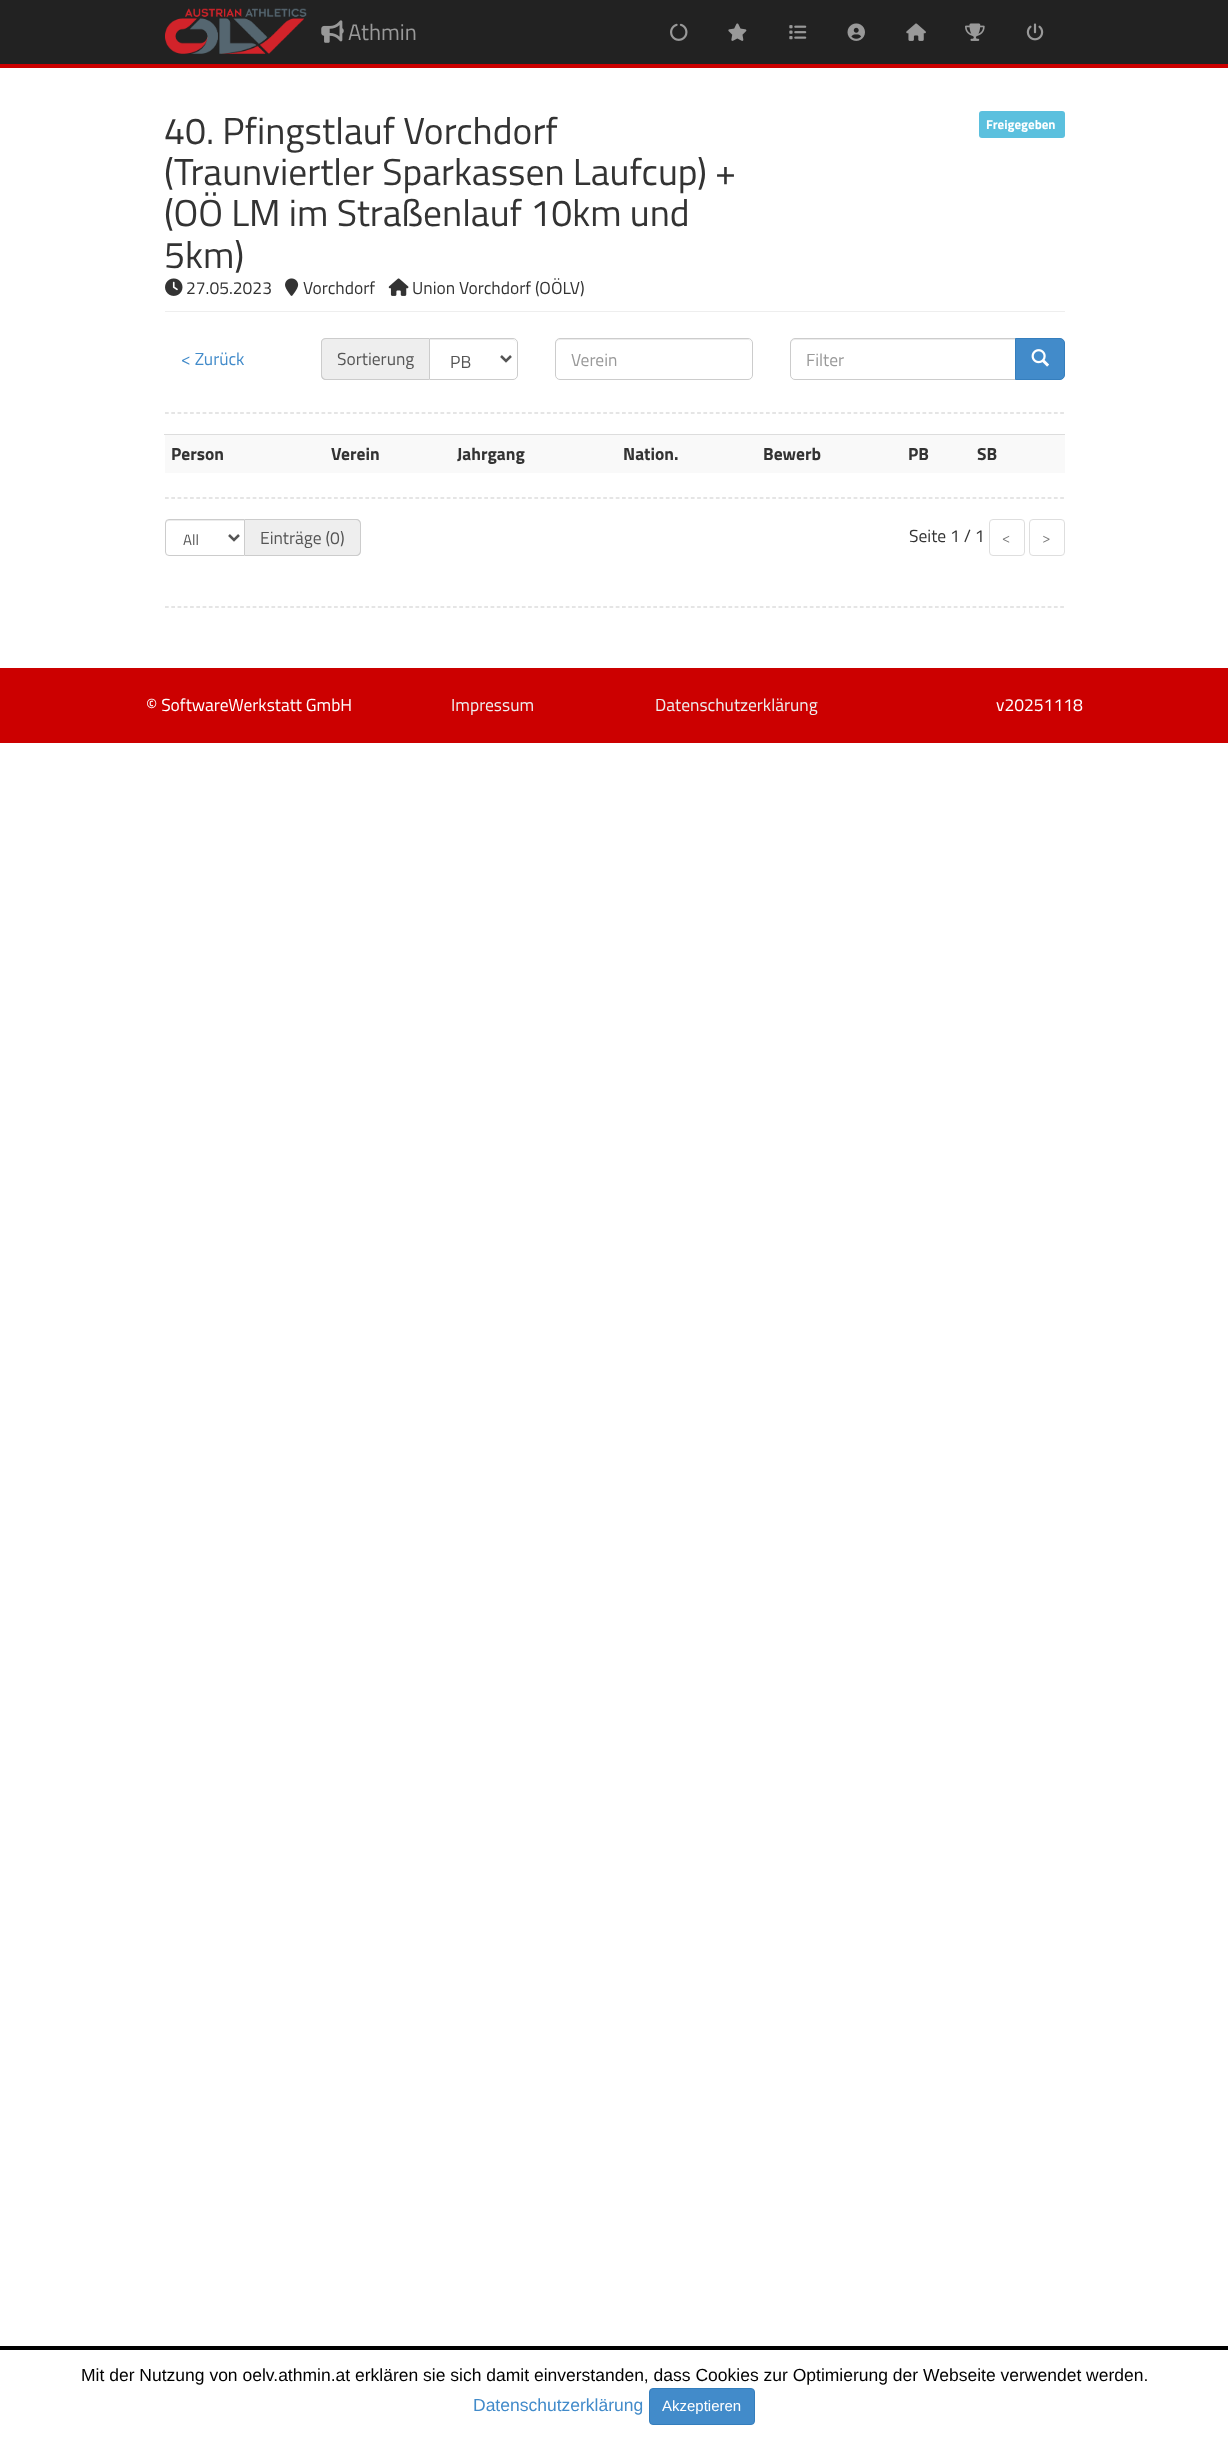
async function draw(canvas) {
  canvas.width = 1228
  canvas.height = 2437
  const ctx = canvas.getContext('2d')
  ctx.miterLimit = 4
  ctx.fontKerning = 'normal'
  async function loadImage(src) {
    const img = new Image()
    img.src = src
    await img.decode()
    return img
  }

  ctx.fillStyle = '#fff'
  ctx.fillRect(0, 0, 1228, 2437)
  ctx.fillStyle = '#222'
  ctx.fillRect(0, 0, 1228, 64)
  ctx.fillStyle = '#c00'
  ctx.fillRect(0, 64, 1228, 4)
  ctx.drawImage(await loadImage('image0.png'), 165, 8, 142, 46)
  ctx.drawImage(await loadImage('image1.png'), 321, 20, 23, 23)
  ctx.font = '22.5px Titillium Web'
  ctx.fillStyle = '#999'
  ctx.fillText('Athmin', 348, 40)
  ctx.drawImage(await loadImage('image2.png'), 670, 23, 18, 18)
  ctx.drawImage(await loadImage('image3.png'), 728, 23, 19, 18)
  ctx.drawImage(await loadImage('image4.png'), 789, 25, 18, 15)
  ctx.drawImage(await loadImage('image5.png'), 847, 23, 18, 18)
  ctx.drawImage(await loadImage('image6.png'), 906, 23, 20, 18)
  ctx.drawImage(await loadImage('image7.png'), 965, 23, 20, 18)
  ctx.drawImage(await loadImage('image8.png'), 1026, 23, 18, 18)
  ctx.fillStyle = '#eee'
  ctx.fillRect(165, 311, 900, 1)
  ctx.font = '37.5px Titillium Web'
  ctx.fillStyle = '#333'
  ctx.fillText('40. Pfingstlauf Vorchdorf', 164, 144)
  ctx.fillText('(Traunviertler Sparkassen Laufcup) +', 164, 185)
  ctx.fillText('(OÖ LM im Straßenlauf 10km und', 164, 226)
  ctx.fillText('5km)', 164, 268)
  ctx.fillStyle = '#5bc0de'
  ctx.beginPath()
  ctx.roundRect(979, 111, 86, 27, 3)
  ctx.fill()
  ctx.font = 'bold 13px Titillium Web'
  ctx.fillStyle = '#fff'
  ctx.fillText('Freigegeben', 986, 129)
  ctx.drawImage(await loadImage('image9.png'), 165, 278, 18, 18)
  ctx.font = '17.5px Titillium Web'
  ctx.fillStyle = '#333'
  ctx.fillText('27.05.2023', 186, 294)
  ctx.drawImage(await loadImage('image10.png'), 285, 278, 14, 18)
  ctx.fillText('Vorchdorf', 303, 294)
  ctx.drawImage(await loadImage('image11.png'), 388, 278, 21, 18)
  ctx.fillText('Union Vorchdorf (OÖLV)', 412, 294)
  ctx.fillStyle = '#428bca'
  ctx.fillText('< Zurück', 181, 365)
  ctx.fillStyle = '#eee'
  ctx.beginPath()
  ctx.roundRect(321, 338, 108, 42, [5, 0, 0, 5])
  ctx.fill()
  ctx.fillStyle = '#ccc'
  ctx.beginPath()
  ctx.moveTo(326, 338)
  ctx.lineTo(429, 338)
  ctx.lineTo(429, 380)
  ctx.lineTo(326, 380)
  ctx.bezierCurveTo(323, 380, 321, 378, 321, 375)
  ctx.lineTo(321, 342)
  ctx.bezierCurveTo(321, 340, 323, 338, 326, 338)
  ctx.closePath()
  ctx.moveTo(326, 339)
  ctx.lineTo(429, 339)
  ctx.lineTo(429, 379)
  ctx.lineTo(326, 379)
  ctx.bezierCurveTo(324, 379, 322, 377, 322, 375)
  ctx.lineTo(322, 342)
  ctx.bezierCurveTo(322, 340, 324, 339, 326, 339)
  ctx.closePath()
  ctx.fill('evenodd')
  ctx.fillStyle = '#555'
  ctx.fillText('Sortierung', 337, 365)
  ctx.fillStyle = '#ececec'
  ctx.beginPath()
  ctx.moveTo(430, 340)
  ctx.lineTo(512, 340)
  ctx.bezierCurveTo(515, 340, 516, 342, 516, 344)
  ctx.lineTo(516, 343)
  ctx.bezierCurveTo(516, 341, 514, 339, 512, 339)
  ctx.lineTo(430, 339)
  ctx.closePath()
  ctx.fill()
  ctx.beginPath()
  ctx.roundRect(429.5, 338.5, 88, 41, [0, 4.5, 4.5, 0])
  ctx.strokeStyle = '#ccc'
  ctx.stroke()
  ctx.beginPath()
  ctx.moveTo(501, 356)
  ctx.lineTo(506, 361)
  ctx.lineTo(511, 356)
  ctx.strokeStyle = '#555'
  ctx.lineWidth = 2.5
  ctx.stroke()
  ctx.fillStyle = '#555'
  ctx.fillText('PB', 450, 368)
  ctx.fillStyle = '#ececec'
  ctx.beginPath()
  ctx.moveTo(560, 340)
  ctx.lineTo(748, 340)
  ctx.bezierCurveTo(750, 340, 751, 342, 751, 344)
  ctx.lineTo(751, 343)
  ctx.bezierCurveTo(751, 341, 749, 339, 747, 339)
  ctx.lineTo(560, 339)
  ctx.bezierCurveTo(558, 339, 556, 341, 556, 343)
  ctx.lineTo(556, 344)
  ctx.bezierCurveTo(556, 342, 558, 340, 560, 340)
  ctx.closePath()
  ctx.fill()
  ctx.beginPath()
  ctx.roundRect(555.5, 338.5, 197, 41, 4.5)
  ctx.strokeStyle = '#ccc'
  ctx.lineWidth = 1
  ctx.stroke()
  ctx.fillStyle = '#999'
  ctx.fillText('Verein', 571, 366)
  ctx.fillStyle = '#ececec'
  ctx.beginPath()
  ctx.moveTo(795, 340)
  ctx.lineTo(1015, 340)
  ctx.lineTo(1015, 339)
  ctx.lineTo(795, 339)
  ctx.bezierCurveTo(792, 339, 791, 341, 791, 344)
  ctx.bezierCurveTo(791, 342, 793, 340, 795, 340)
  ctx.closePath()
  ctx.fill()
  ctx.beginPath()
  ctx.roundRect(790.5, 338.5, 225, 41, [4.5, 0, 0, 4.5])
  ctx.stroke()
  ctx.fillStyle = '#999'
  ctx.fillText('Filter', 806, 366)
  ctx.fillStyle = '#428bca'
  ctx.beginPath()
  ctx.roundRect(1015.5, 338.5, 49, 41, [0, 4.5, 4.5, 0])
  ctx.fill()
  ctx.strokeStyle = '#357ebd'
  ctx.stroke()
  ctx.drawImage(await loadImage('image12.png'), 1031, 349, 18, 18)
  ctx.beginPath()
  ctx.moveTo(165, 413)
  ctx.lineTo(1065, 413)
  ctx.strokeStyle = '#ccc'
  ctx.lineWidth = 1.2
  ctx.setLineDash([3.75, 2.51])
  ctx.stroke()
  ctx.fillStyle = '#ddd'
  ctx.fillRect(164, 434, 901, 1)
  ctx.fillStyle = '#f9f9f9'
  ctx.fillRect(165, 435, 900, 38)
  ctx.font = 'bold 17.5px Titillium Web'
  ctx.fillStyle = '#333'
  ctx.fillText('Person', 171, 460)
  ctx.fillText('Verein', 331, 460)
  ctx.fillText('Jahrgang', 457, 460)
  ctx.fillText('Nation.', 623, 460)
  ctx.fillText('Bewerb', 763, 460)
  ctx.fillText('PB', 908, 460)
  ctx.fillText('SB', 977, 460)
  ctx.beginPath()
  ctx.moveTo(165, 498)
  ctx.lineTo(1065, 498)
  ctx.stroke()
  ctx.fillStyle = '#ececec'
  ctx.beginPath()
  ctx.moveTo(169, 521)
  ctx.lineTo(244, 521)
  ctx.lineTo(244, 520)
  ctx.lineTo(168, 520)
  ctx.bezierCurveTo(167, 520, 166, 521, 166, 522)
  ctx.lineTo(166, 524)
  ctx.bezierCurveTo(166, 522, 167, 521, 169, 521)
  ctx.closePath()
  ctx.fill()
  ctx.beginPath()
  ctx.roundRect(165.5, 519.5, 79, 36, [3.5, 0, 0, 3.5])
  ctx.lineWidth = 1
  ctx.setLineDash([])
  ctx.stroke()
  ctx.beginPath()
  ctx.moveTo(229, 535)
  ctx.lineTo(234, 540)
  ctx.lineTo(239, 535)
  ctx.strokeStyle = '#555'
  ctx.lineWidth = 2.5
  ctx.stroke()
  ctx.font = '15px Titillium Web'
  ctx.fillStyle = '#555'
  ctx.fillText('All', 183, 545)
  ctx.fillStyle = '#eee'
  ctx.beginPath()
  ctx.roundRect(245, 519, 116, 37, [0, 5, 5, 0])
  ctx.fill()
  ctx.fillStyle = '#ccc'
  ctx.beginPath()
  ctx.moveTo(245, 519)
  ctx.lineTo(356, 519)
  ctx.bezierCurveTo(359, 519, 361, 521, 361, 524)
  ctx.lineTo(361, 551)
  ctx.bezierCurveTo(361, 554, 359, 556, 356, 556)
  ctx.lineTo(245, 556)
  ctx.closePath()
  ctx.moveTo(245, 520)
  ctx.lineTo(356, 520)
  ctx.bezierCurveTo(358, 520, 360, 522, 360, 524)
  ctx.lineTo(360, 551)
  ctx.bezierCurveTo(360, 553, 358, 555, 356, 555)
  ctx.lineTo(245, 555)
  ctx.closePath()
  ctx.fill('evenodd')
  ctx.font = '17.5px Titillium Web'
  ctx.fillStyle = '#555'
  ctx.fillText('Einträge (0)', 260, 544)
  ctx.fillStyle = '#333'
  ctx.fillText('Seite 1 / 1', 909, 542)
  ctx.beginPath()
  ctx.roundRect(989.5, 519.5, 35, 36, 3.5)
  ctx.strokeStyle = '#dedede'
  ctx.lineWidth = 1
  ctx.stroke()
  ctx.font = '15px Titillium Web'
  ctx.fillStyle = '#7a7a7a'
  ctx.fillText('<', 1002, 543)
  ctx.beginPath()
  ctx.roundRect(1029.5, 519.5, 35, 36, 3.5)
  ctx.stroke()
  ctx.fillText('>', 1042, 543)
  ctx.beginPath()
  ctx.moveTo(165, 607)
  ctx.lineTo(1065, 607)
  ctx.strokeStyle = '#ccc'
  ctx.lineWidth = 1.2
  ctx.setLineDash([3.75, 2.51])
  ctx.stroke()
  ctx.fillStyle = '#c00'
  ctx.fillRect(0, 668, 1228, 75)
  ctx.font = '17.5px Titillium Web'
  ctx.fillStyle = '#fff'
  ctx.fillText('© SoftwareWerkstatt GmbH', 146, 711)
  ctx.fillStyle = '#eee'
  ctx.fillText('Impressum', 451, 711)
  ctx.fillText('Datenschutzerklärung', 655, 711)
  ctx.fillStyle = '#fff'
  ctx.fillText('v20251118', 996, 711)
  ctx.fillStyle = '#000'
  ctx.fillRect(0, 2346, 1228, 4)
  ctx.font = '17.5px Liberation Sans'
  ctx.fillText('Mit der Nutzung von oelv.athmin.at erklären sie sich damit einverstanden, dass Cookies zur Optimierung der Webseite verwendet werden.', 81, 2381)
  ctx.fillStyle = '#428bca'
  ctx.fillText('Datenschutzerklärung', 473, 2411)
  ctx.beginPath()
  ctx.roundRect(649.5, 2388.5, 105, 36, 3.5)
  ctx.fill()
  ctx.strokeStyle = '#357ebd'
  ctx.lineWidth = 1
  ctx.setLineDash([])
  ctx.stroke()
  ctx.font = '15px Liberation Sans'
  ctx.fillStyle = '#fff'
  ctx.fillText('Akzeptieren', 662, 2411)
}

draw(document.querySelector('canvas'))
